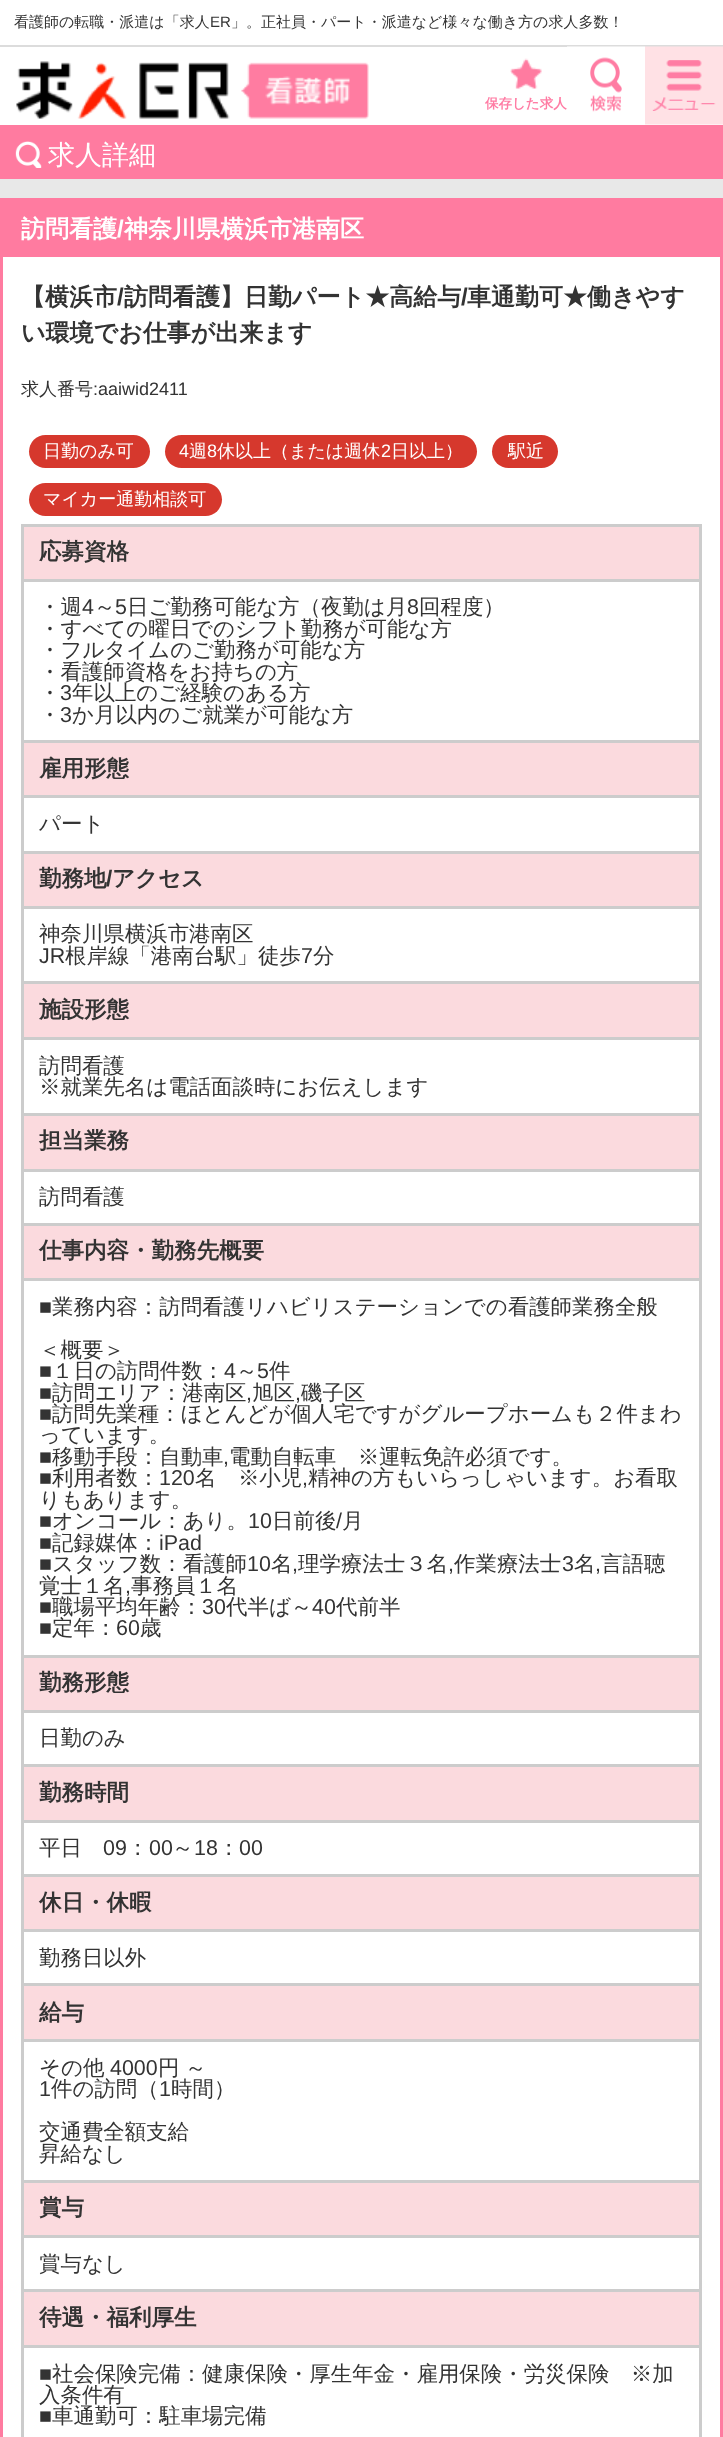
async function draw(canvas) {
  canvas.width = 723
  canvas.height = 2437
  const ctx = canvas.getContext('2d')
  ctx.miterLimit = 4
  ctx.fontKerning = 'normal'
  async function loadImage(src) {
    const img = new Image()
    img.src = src
    await img.decode()
    return img
  }

  ctx.fillStyle = '#fff'
  ctx.fillRect(0, 0, 723, 2437)
  ctx.font = '500 15px WenQuanYi Zen Hei'
  ctx.fillStyle = '#333'
  ctx.fillText('看護師の転職・派遣は「求人', 14, 27)
  ctx.font = '15px Liberation Sans'
  ctx.fillText('ER', 210, 27)
  ctx.font = '500 15px WenQuanYi Zen Hei'
  ctx.fillText('」。正社員・パート・派遣など様々な働き方の求人多数！', 231, 27)
  ctx.fillStyle = '#dcdcdc'
  ctx.fillRect(0, 45, 723, 2)
  ctx.drawImage(await loadImage('image0.png'), 16, 61, 353, 58)
  ctx.drawImage(await loadImage('image1.png'), 510, 58, 32, 31)
  ctx.font = 'bold 13.5px WenQuanYi Zen Hei'
  ctx.fillStyle = '#ff7ca4'
  ctx.fillText('保存した求人', 485, 108)
  ctx.drawImage(await loadImage('image2.png'), 567, 46, 78, 66)
  ctx.drawImage(await loadImage('image3.png'), 645, 46, 78, 79)
  ctx.fillStyle = '#e8e8e8'
  ctx.fillRect(0, 179, 723, 19)
  ctx.fillStyle = '#ff7ba0'
  ctx.fillRect(0, 125, 723, 54)
  ctx.drawImage(await loadImage('image4.png'), 15, 141, 27, 27)
  ctx.font = '500 27px WenQuanYi Zen Hei'
  ctx.fillStyle = '#fff'
  ctx.fillText('求人詳細', 48, 164)
  ctx.strokeStyle = '#ff7ba0'
  ctx.lineWidth = 3
  ctx.strokeRect(1.5, 199.5, 720, 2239)
  ctx.fillStyle = '#ff7ba0'
  ctx.fillRect(3, 201, 717, 56)
  ctx.font = 'bold 24px WenQuanYi Zen Hei'
  ctx.fillStyle = '#fff'
  ctx.fillText('訪問看護', 21, 237)
  ctx.font = 'bold 24px Liberation Sans'
  ctx.fillText('/', 117, 237)
  ctx.font = 'bold 24px WenQuanYi Zen Hei'
  ctx.fillText('神奈川県横浜市港南区', 124, 237)
  ctx.fillStyle = '#333'
  ctx.fillText('【横浜市', 21, 305)
  ctx.font = 'bold 24px Liberation Sans'
  ctx.fillText('/', 117, 305)
  ctx.font = 'bold 24px WenQuanYi Zen Hei'
  ctx.fillText('訪問看護】日勤パート★高給与', 124, 305)
  ctx.font = 'bold 24px Liberation Sans'
  ctx.fillText('/', 461, 305)
  ctx.font = 'bold 24px WenQuanYi Zen Hei'
  ctx.fillText('車通勤可★働きやす', 467, 305)
  ctx.fillText('い環境でお仕事が出来ます', 21, 341)
  ctx.font = '500 18px WenQuanYi Zen Hei'
  ctx.fillText('求人番号', 21, 395)
  ctx.font = '18px Liberation Sans'
  ctx.fillText(':aaiwid2411', 93, 395)
  ctx.fillStyle = '#d6382d'
  ctx.beginPath()
  ctx.roundRect(29, 435, 121, 33, 16.5)
  ctx.fill()
  ctx.font = '500 18px WenQuanYi Zen Hei'
  ctx.fillStyle = '#fff'
  ctx.fillText('日勤のみ可', 43, 457)
  ctx.fillStyle = '#d6382d'
  ctx.beginPath()
  ctx.roundRect(165, 435, 312, 33, 16.5)
  ctx.fill()
  ctx.font = '18px Liberation Sans'
  ctx.fillStyle = '#fff'
  ctx.fillText('4', 179, 457)
  ctx.font = '500 18px WenQuanYi Zen Hei'
  ctx.fillText('週', 189, 457)
  ctx.font = '18px Liberation Sans'
  ctx.fillText('8', 207, 457)
  ctx.font = '500 18px WenQuanYi Zen Hei'
  ctx.fillText('休以上（または週休', 217, 457)
  ctx.font = '18px Liberation Sans'
  ctx.fillText('2', 381, 457)
  ctx.font = '500 18px WenQuanYi Zen Hei'
  ctx.fillText('日以上）', 391, 457)
  ctx.fillStyle = '#d6382d'
  ctx.beginPath()
  ctx.roundRect(492, 435, 66, 33, 16.5)
  ctx.fill()
  ctx.fillStyle = '#fff'
  ctx.fillText('駅近', 508, 457)
  ctx.fillStyle = '#d6382d'
  ctx.beginPath()
  ctx.roundRect(29, 483, 193, 33, 16.5)
  ctx.fill()
  ctx.fillStyle = '#fff'
  ctx.fillText('マイカー通勤相談可', 43, 505)
  ctx.fillStyle = '#fbdade'
  ctx.fillRect(24, 527, 675, 1818)
  ctx.fillStyle = '#ccc'
  ctx.fillRect(699, 524, 3, 1913)
  ctx.fillRect(21, 524, 3, 1913)
  ctx.fillRect(24, 524, 675, 3)
  ctx.font = 'bold 22.5px WenQuanYi Zen Hei'
  ctx.fillStyle = '#333'
  ctx.fillText('応募資格', 39, 559)
  ctx.fillStyle = '#fff'
  ctx.fillRect(24, 582, 675, 158)
  ctx.fillStyle = '#ccc'
  ctx.fillRect(24, 579, 675, 3)
  ctx.font = '500 21.45px WenQuanYi Zen Hei'
  ctx.fillStyle = '#333'
  ctx.fillText('・週', 39, 614)
  ctx.font = '21.45px Liberation Sans'
  ctx.fillText('4', 82, 614)
  ctx.font = '500 21.45px WenQuanYi Zen Hei'
  ctx.fillText('～', 94, 614)
  ctx.font = '21.45px Liberation Sans'
  ctx.fillText('5', 115, 614)
  ctx.font = '500 21.45px WenQuanYi Zen Hei'
  ctx.fillText('日ご勤務可能な方（夜勤は月', 127, 614)
  ctx.font = '21.45px Liberation Sans'
  ctx.fillText('8', 407, 614)
  ctx.font = '500 21.45px WenQuanYi Zen Hei'
  ctx.fillText('回程度）', 419, 614)
  ctx.fillText('・すべての曜日でのシフト勤務が可能な方', 39, 636)
  ctx.fillText('・フルタイムのご勤務が可能な方', 39, 657)
  ctx.fillText('・看護師資格をお持ちの方', 39, 679)
  ctx.fillText('・', 39, 700)
  ctx.font = '21.45px Liberation Sans'
  ctx.fillText('3', 60, 700)
  ctx.font = '500 21.45px WenQuanYi Zen Hei'
  ctx.fillText('年以上のご経験のある方', 72, 700)
  ctx.fillText('・', 39, 722)
  ctx.font = '21.45px Liberation Sans'
  ctx.fillText('3', 60, 722)
  ctx.font = '500 21.45px WenQuanYi Zen Hei'
  ctx.fillText('か月以内のご就業が可能な方', 72, 722)
  ctx.fillStyle = '#ccc'
  ctx.fillRect(24, 740, 675, 3)
  ctx.font = 'bold 22.5px WenQuanYi Zen Hei'
  ctx.fillStyle = '#333'
  ctx.fillText('雇用形態', 39, 776)
  ctx.fillStyle = '#fff'
  ctx.fillRect(24, 798, 675, 53)
  ctx.fillStyle = '#ccc'
  ctx.fillRect(24, 795, 675, 3)
  ctx.font = '500 21.45px WenQuanYi Zen Hei'
  ctx.fillStyle = '#333'
  ctx.fillText('パート', 39, 831)
  ctx.fillStyle = '#ccc'
  ctx.fillRect(24, 851, 675, 3)
  ctx.font = 'bold 22.5px WenQuanYi Zen Hei'
  ctx.fillStyle = '#333'
  ctx.fillText('勤務地', 39, 886)
  ctx.font = 'bold 22.5px Liberation Sans'
  ctx.fillText('/', 106, 886)
  ctx.font = 'bold 22.5px WenQuanYi Zen Hei'
  ctx.fillText('アクセス', 112, 886)
  ctx.fillStyle = '#fff'
  ctx.fillRect(24, 909, 675, 72)
  ctx.fillStyle = '#ccc'
  ctx.fillRect(24, 906, 675, 3)
  ctx.font = '500 21.45px WenQuanYi Zen Hei'
  ctx.fillStyle = '#333'
  ctx.fillText('神奈川県横浜市港南区', 39, 941)
  ctx.font = '21.45px Liberation Sans'
  ctx.fillText('JR', 39, 963)
  ctx.font = '500 21.45px WenQuanYi Zen Hei'
  ctx.fillText('根岸線「港南台駅」徒歩', 65, 963)
  ctx.font = '21.45px Liberation Sans'
  ctx.fillText('7', 301, 963)
  ctx.font = '500 21.45px WenQuanYi Zen Hei'
  ctx.fillText('分', 313, 963)
  ctx.fillStyle = '#ccc'
  ctx.fillRect(24, 981, 675, 3)
  ctx.font = 'bold 22.5px WenQuanYi Zen Hei'
  ctx.fillStyle = '#333'
  ctx.fillText('施設形態', 39, 1017)
  ctx.fillStyle = '#fff'
  ctx.fillRect(24, 1040, 675, 73)
  ctx.fillStyle = '#ccc'
  ctx.fillRect(24, 1037, 675, 3)
  ctx.font = '500 21.45px WenQuanYi Zen Hei'
  ctx.fillStyle = '#333'
  ctx.fillText('訪問看護', 39, 1073)
  ctx.fillText('※就業先名は電話面談時にお伝えします', 39, 1094)
  ctx.fillStyle = '#ccc'
  ctx.fillRect(24, 1113, 675, 3)
  ctx.font = 'bold 22.5px WenQuanYi Zen Hei'
  ctx.fillStyle = '#333'
  ctx.fillText('担当業務', 39, 1148)
  ctx.fillStyle = '#fff'
  ctx.fillRect(24, 1172, 675, 51)
  ctx.fillStyle = '#ccc'
  ctx.fillRect(24, 1169, 675, 3)
  ctx.font = '500 21.45px WenQuanYi Zen Hei'
  ctx.fillStyle = '#333'
  ctx.fillText('訪問看護', 39, 1204)
  ctx.fillStyle = '#ccc'
  ctx.fillRect(24, 1223, 675, 3)
  ctx.font = 'bold 22.5px WenQuanYi Zen Hei'
  ctx.fillStyle = '#333'
  ctx.fillText('仕事内容・勤務先概要', 39, 1258)
  ctx.fillStyle = '#fff'
  ctx.fillRect(24, 1281, 675, 374)
  ctx.fillStyle = '#ccc'
  ctx.fillRect(24, 1278, 675, 3)
  ctx.font = '21.45px Liberation Sans'
  ctx.fillStyle = '#333'
  ctx.fillText('■', 39, 1314)
  ctx.font = '500 21.45px WenQuanYi Zen Hei'
  ctx.fillText('業務内容：訪問看護リハビリステーションでの看護師業務全般', 52, 1314)
  ctx.fillText('＜概要＞', 39, 1357)
  ctx.font = '21.45px Liberation Sans'
  ctx.fillText('■', 39, 1378)
  ctx.font = '500 21.45px WenQuanYi Zen Hei'
  ctx.fillText('１日の訪問件数：', 52, 1378)
  ctx.font = '21.45px Liberation Sans'
  ctx.fillText('4', 224, 1378)
  ctx.font = '500 21.45px WenQuanYi Zen Hei'
  ctx.fillText('～', 236, 1378)
  ctx.font = '21.45px Liberation Sans'
  ctx.fillText('5', 257, 1378)
  ctx.font = '500 21.45px WenQuanYi Zen Hei'
  ctx.fillText('件', 269, 1378)
  ctx.font = '21.45px Liberation Sans'
  ctx.fillText('■', 39, 1400)
  ctx.font = '500 21.45px WenQuanYi Zen Hei'
  ctx.fillText('訪問エリア：港南区', 52, 1400)
  ctx.fillText('旭区', 252, 1400)
  ctx.fillText('磯子区', 301, 1400)
  ctx.font = '21.45px Liberation Sans'
  ctx.fillText(',', 246, 1400)
  ctx.fillText(',', 295, 1400)
  ctx.fillText('■', 39, 1421)
  ctx.font = '500 21.45px WenQuanYi Zen Hei'
  ctx.fillText('訪問先業種：ほとんどが個人宅ですがグループホームも２件まわ', 52, 1421)
  ctx.fillText('っています。', 39, 1442)
  ctx.font = '21.45px Liberation Sans'
  ctx.fillText('■', 39, 1464)
  ctx.font = '500 21.45px WenQuanYi Zen Hei'
  ctx.fillText('移動手段：自動車', 52, 1464)
  ctx.fillText('電動自転車　※運転免許必須です。', 229, 1464)
  ctx.font = '21.45px Liberation Sans'
  ctx.fillText(',', 223, 1464)
  ctx.fillText('■', 39, 1485)
  ctx.font = '500 21.45px WenQuanYi Zen Hei'
  ctx.fillText('利用者数：', 52, 1485)
  ctx.font = '21.45px Liberation Sans'
  ctx.fillText('120', 159, 1485)
  ctx.font = '500 21.45px WenQuanYi Zen Hei'
  ctx.fillText('名　※小児', 195, 1485)
  ctx.fillText('精神の方もいらっしゃいます。お看取', 308, 1485)
  ctx.font = '21.45px Liberation Sans'
  ctx.fillText(',', 302, 1485)
  ctx.font = '500 21.45px WenQuanYi Zen Hei'
  ctx.fillText('りもあります。', 39, 1507)
  ctx.font = '21.45px Liberation Sans'
  ctx.fillText('■', 39, 1528)
  ctx.font = '500 21.45px WenQuanYi Zen Hei'
  ctx.fillText('オンコール：あり。', 52, 1528)
  ctx.font = '21.45px Liberation Sans'
  ctx.fillText('10', 248, 1528)
  ctx.font = '500 21.45px WenQuanYi Zen Hei'
  ctx.fillText('日前後', 272, 1528)
  ctx.font = '21.45px Liberation Sans'
  ctx.fillText('/', 336, 1528)
  ctx.font = '500 21.45px WenQuanYi Zen Hei'
  ctx.fillText('月', 342, 1528)
  ctx.font = '21.45px Liberation Sans'
  ctx.fillText('■', 39, 1550)
  ctx.font = '500 21.45px WenQuanYi Zen Hei'
  ctx.fillText('記録媒体：', 52, 1550)
  ctx.font = '21.45px Liberation Sans'
  ctx.fillText('iPad', 159, 1550)
  ctx.fillText('■', 39, 1571)
  ctx.font = '500 21.45px WenQuanYi Zen Hei'
  ctx.fillText('スタッフ数：看護師', 52, 1571)
  ctx.font = '21.45px Liberation Sans'
  ctx.fillText('10', 247, 1571)
  ctx.font = '500 21.45px WenQuanYi Zen Hei'
  ctx.fillText('名', 271, 1571)
  ctx.fillText('理学療法士３名', 298, 1571)
  ctx.fillText('作業療法士', 454, 1571)
  ctx.font = '21.45px Liberation Sans'
  ctx.fillText('3', 562, 1571)
  ctx.font = '500 21.45px WenQuanYi Zen Hei'
  ctx.fillText('名', 574, 1571)
  ctx.fillText('言語聴', 601, 1571)
  ctx.font = '21.45px Liberation Sans'
  ctx.fillText(',', 292, 1571)
  ctx.fillText(',', 448, 1571)
  ctx.fillText(',', 595, 1571)
  ctx.font = '500 21.45px WenQuanYi Zen Hei'
  ctx.fillText('覚士１名', 39, 1593)
  ctx.font = '21.45px Liberation Sans'
  ctx.fillText(',', 125, 1593)
  ctx.font = '500 21.45px WenQuanYi Zen Hei'
  ctx.fillText('事務員１名', 131, 1593)
  ctx.font = '21.45px Liberation Sans'
  ctx.fillText('■', 39, 1614)
  ctx.font = '500 21.45px WenQuanYi Zen Hei'
  ctx.fillText('職場平均年齢：', 52, 1614)
  ctx.font = '21.45px Liberation Sans'
  ctx.fillText('30', 202, 1614)
  ctx.font = '500 21.45px WenQuanYi Zen Hei'
  ctx.fillText('代半ば～', 226, 1614)
  ctx.font = '21.45px Liberation Sans'
  ctx.fillText('40', 312, 1614)
  ctx.font = '500 21.45px WenQuanYi Zen Hei'
  ctx.fillText('代前半', 336, 1614)
  ctx.font = '21.45px Liberation Sans'
  ctx.fillText('■', 39, 1635)
  ctx.font = '500 21.45px WenQuanYi Zen Hei'
  ctx.fillText('定年：', 52, 1635)
  ctx.font = '21.45px Liberation Sans'
  ctx.fillText('60', 116, 1635)
  ctx.font = '500 21.45px WenQuanYi Zen Hei'
  ctx.fillText('歳', 140, 1635)
  ctx.fillStyle = '#ccc'
  ctx.fillRect(24, 1655, 675, 3)
  ctx.font = 'bold 22.5px WenQuanYi Zen Hei'
  ctx.fillStyle = '#333'
  ctx.fillText('勤務形態', 39, 1690)
  ctx.fillStyle = '#fff'
  ctx.fillRect(24, 1713, 675, 51)
  ctx.fillStyle = '#ccc'
  ctx.fillRect(24, 1710, 675, 3)
  ctx.font = '500 21.45px WenQuanYi Zen Hei'
  ctx.fillStyle = '#333'
  ctx.fillText('日勤のみ', 39, 1745)
  ctx.fillStyle = '#ccc'
  ctx.fillRect(24, 1764, 675, 3)
  ctx.font = 'bold 22.5px WenQuanYi Zen Hei'
  ctx.fillStyle = '#333'
  ctx.fillText('勤務時間', 39, 1800)
  ctx.fillStyle = '#fff'
  ctx.fillRect(24, 1823, 675, 51)
  ctx.fillStyle = '#ccc'
  ctx.fillRect(24, 1820, 675, 3)
  ctx.font = '500 21.45px WenQuanYi Zen Hei'
  ctx.fillStyle = '#333'
  ctx.fillText('平日', 39, 1855)
  ctx.font = '21.45px Liberation Sans'
  ctx.fillText('09', 103, 1855)
  ctx.font = '500 21.45px WenQuanYi Zen Hei'
  ctx.fillText('：', 127, 1855)
  ctx.font = '21.45px Liberation Sans'
  ctx.fillText('00', 149, 1855)
  ctx.font = '500 21.45px WenQuanYi Zen Hei'
  ctx.fillText('～', 172, 1855)
  ctx.font = '21.45px Liberation Sans'
  ctx.fillText('18', 194, 1855)
  ctx.font = '500 21.45px WenQuanYi Zen Hei'
  ctx.fillText('：', 218, 1855)
  ctx.font = '21.45px Liberation Sans'
  ctx.fillText('00', 239, 1855)
  ctx.fillStyle = '#ccc'
  ctx.fillRect(24, 1874, 675, 3)
  ctx.font = 'bold 22.5px WenQuanYi Zen Hei'
  ctx.fillStyle = '#333'
  ctx.fillText('休日・休暇', 39, 1910)
  ctx.fillStyle = '#fff'
  ctx.fillRect(24, 1932, 675, 51)
  ctx.fillStyle = '#ccc'
  ctx.fillRect(24, 1929, 675, 3)
  ctx.font = '500 21.45px WenQuanYi Zen Hei'
  ctx.fillStyle = '#333'
  ctx.fillText('勤務日以外', 39, 1965)
  ctx.fillStyle = '#ccc'
  ctx.fillRect(24, 1983, 675, 3)
  ctx.font = 'bold 22.5px WenQuanYi Zen Hei'
  ctx.fillStyle = '#333'
  ctx.fillText('給与', 39, 2020)
  ctx.fillStyle = '#fff'
  ctx.fillRect(24, 2042, 675, 138)
  ctx.fillStyle = '#ccc'
  ctx.fillRect(24, 2039, 675, 3)
  ctx.font = '500 21.45px WenQuanYi Zen Hei'
  ctx.fillStyle = '#333'
  ctx.fillText('その他', 39, 2075)
  ctx.font = '21.45px Liberation Sans'
  ctx.fillText('4000', 110, 2075)
  ctx.font = '500 21.45px WenQuanYi Zen Hei'
  ctx.fillText('円', 158, 2075)
  ctx.fillText('～', 185, 2075)
  ctx.font = '21.45px Liberation Sans'
  ctx.fillText('1', 39, 2096)
  ctx.font = '500 21.45px WenQuanYi Zen Hei'
  ctx.fillText('件の訪問（', 51, 2096)
  ctx.font = '21.45px Liberation Sans'
  ctx.fillText('1', 159, 2096)
  ctx.font = '500 21.45px WenQuanYi Zen Hei'
  ctx.fillText('時間）', 171, 2096)
  ctx.fillText('交通費全額支給', 39, 2139)
  ctx.fillText('昇給なし', 39, 2161)
  ctx.fillStyle = '#ccc'
  ctx.fillRect(24, 2180, 675, 3)
  ctx.font = 'bold 22.5px WenQuanYi Zen Hei'
  ctx.fillStyle = '#333'
  ctx.fillText('賞与', 39, 2215)
  ctx.fillStyle = '#fff'
  ctx.fillRect(24, 2238, 675, 51)
  ctx.fillStyle = '#ccc'
  ctx.fillRect(24, 2235, 675, 3)
  ctx.font = '500 21.45px WenQuanYi Zen Hei'
  ctx.fillStyle = '#333'
  ctx.fillText('賞与なし', 39, 2271)
  ctx.fillStyle = '#ccc'
  ctx.fillRect(24, 2289, 675, 3)
  ctx.font = 'bold 22.5px WenQuanYi Zen Hei'
  ctx.fillStyle = '#333'
  ctx.fillText('待遇・福利厚生', 39, 2325)
  ctx.fillStyle = '#ccc'
  ctx.fillRect(24, 2345, 675, 3)
  ctx.font = '21.45px Liberation Sans'
  ctx.fillStyle = '#333'
  ctx.fillText('■', 39, 2381)
  ctx.font = '500 21.45px WenQuanYi Zen Hei'
  ctx.fillText('社会保険完備：健康保険・厚生年金・雇用保険・労災保険　※加', 52, 2381)
  ctx.fillText('入条件有', 39, 2402)
  ctx.font = '21.45px Liberation Sans'
  ctx.fillText('■', 39, 2423)
  ctx.font = '500 21.45px WenQuanYi Zen Hei'
  ctx.fillText('車通勤可：駐車場完備', 52, 2423)
}

draw(document.querySelector('canvas'))
